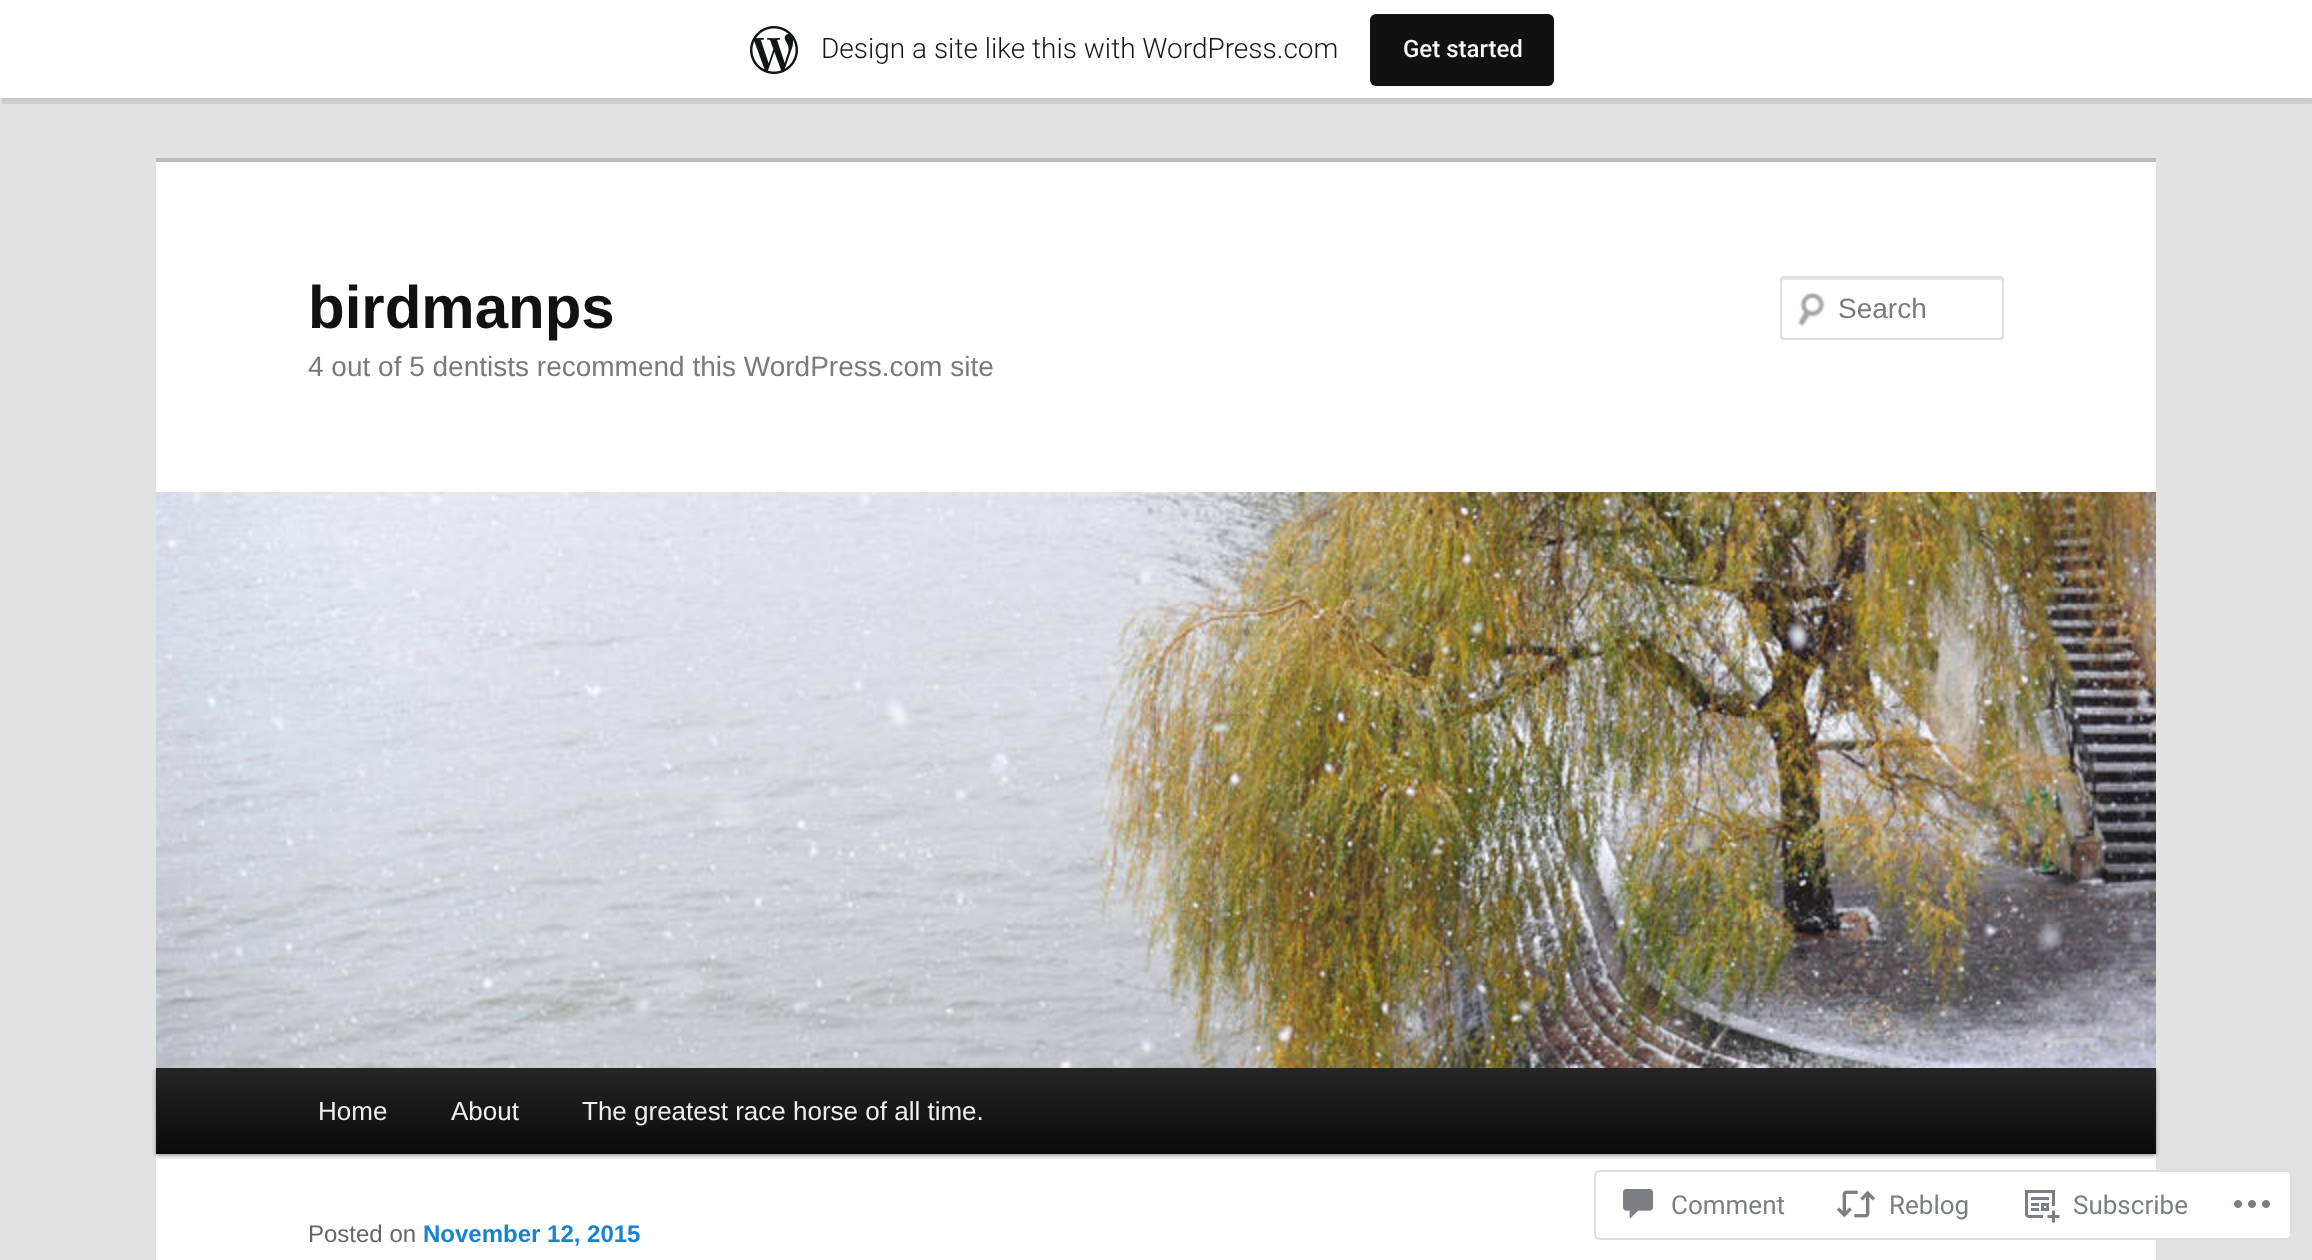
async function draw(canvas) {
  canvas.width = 2312
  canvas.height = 1260
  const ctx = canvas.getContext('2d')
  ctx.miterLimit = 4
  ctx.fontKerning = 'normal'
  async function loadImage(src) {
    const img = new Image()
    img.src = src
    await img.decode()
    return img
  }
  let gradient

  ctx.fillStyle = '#e2e2e2'
  ctx.fillRect(0, 0, 2312, 1260)
  ctx.fillStyle = '#0000000d'
  ctx.filter = 'blur(2px)'
  ctx.beginPath()
  ctx.rect(0, 2, 2312, 98)
  ctx.fill()
  ctx.filter = 'none'
  ctx.fillStyle = '#00000014'
  ctx.beginPath()
  ctx.moveTo(2, 98)
  ctx.lineTo(2, 104)
  ctx.lineTo(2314, 104)
  ctx.lineTo(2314, 6)
  ctx.lineTo(2312, 6)
  ctx.lineTo(2312, 98)
  ctx.closePath()
  ctx.fill()
  ctx.fillStyle = '#fff'
  ctx.fillRect(0, 0, 2312, 98)
  ctx.drawImage(await loadImage('image0.png'), 750, 26, 48, 48)
  ctx.font = '300 28px Roboto'
  ctx.fillStyle = '#171717'
  ctx.fillText('Design a site like this with WordPress.com', 821, 58)
  ctx.fillStyle = '#111'
  ctx.beginPath()
  ctx.roundRect(1370, 14, 184, 72, 6)
  ctx.fill()
  ctx.font = '500 24px Roboto'
  ctx.fillStyle = '#f6f7f7'
  ctx.fillText('Get started', 1403, 57)
  ctx.fillStyle = '#fff'
  ctx.fillRect(156, 162, 2000, 1098)
  ctx.fillStyle = '#bbb'
  ctx.fillRect(156, 158, 2000, 4)
  ctx.font = 'bold 60px Liberation Sans'
  ctx.fillStyle = '#111'
  ctx.fillText('birdmanps', 308, 328)
  ctx.font = '28px Liberation Sans'
  ctx.fillStyle = '#7a7a7a'
  ctx.fillText('4 out of 5 dentists recommend this WordPress.com site', 308, 376)
  ctx.drawImage(await loadImage('image1.png'), 1797, 292, 28, 35)
  ctx.fillStyle = '#e6e6e6'
  ctx.beginPath()
  ctx.moveTo(1784, 280)
  ctx.lineTo(2000, 280)
  ctx.bezierCurveTo(2001, 280, 2002, 281, 2002, 282)
  ctx.lineTo(2002, 280)
  ctx.bezierCurveTo(2002, 279, 2001, 278, 2000, 278)
  ctx.lineTo(1784, 278)
  ctx.bezierCurveTo(1783, 278, 1782, 279, 1782, 280)
  ctx.lineTo(1782, 282)
  ctx.bezierCurveTo(1782, 281, 1783, 280, 1784, 280)
  ctx.closePath()
  ctx.fill()
  ctx.beginPath()
  ctx.roundRect(1781, 277, 222, 62, 3)
  ctx.strokeStyle = '#ddd'
  ctx.lineWidth = 2
  ctx.stroke()
  ctx.fillStyle = '#7a7a7a'
  ctx.fillText('Search', 1838, 318)
  ctx.fillStyle = '#00000066'
  ctx.filter = 'blur(2px)'
  ctx.beginPath()
  ctx.rect(156, 1070, 2000, 86)
  ctx.fill()
  ctx.filter = 'none'
  ctx.drawImage(await loadImage('image2.png'), 156, 492, 2000, 576)
  gradient = ctx.createLinearGradient(1156, 1068, 1156, 1154)
  gradient.addColorStop(0, '#252525')
  gradient.addColorStop(1, '#0a0a0a')
  ctx.fillStyle = gradient
  ctx.fillRect(156, 1068, 2000, 86)
  ctx.font = '26px Liberation Sans'
  ctx.fillStyle = '#eee'
  ctx.fillText('Home', 318, 1120)
  ctx.fillText('About', 451, 1120)
  ctx.fillText('The greatest race horse of all time.', 582, 1120)
  ctx.font = '24px Liberation Sans'
  ctx.fillStyle = '#666'
  ctx.fillText('Posted on', 308, 1242)
  ctx.font = 'bold 24px Liberation Sans'
  ctx.fillStyle = '#1982d1'
  ctx.fillText('November 12, 2015', 423, 1242)
  ctx.fillStyle = '#fffffffa'
  ctx.beginPath()
  ctx.roundRect(1594, 1170, 698, 70, 6)
  ctx.fill()
  ctx.beginPath()
  ctx.roundRect(1595, 1171, 696, 68, 5)
  ctx.strokeStyle = '#dcdcdefa'
  ctx.stroke()
  ctx.drawImage(await loadImage('image3.png'), 1623, 1189, 30, 30)
  ctx.font = '26px Roboto'
  ctx.fillStyle = '#7b7f85'
  ctx.fillText('Comment', 1671, 1214)
  ctx.drawImage(await loadImage('image4.png'), 1836, 1190, 40, 28)
  ctx.fillText('Reblog', 1889, 1214)
  ctx.drawImage(await loadImage('image5.png'), 2025, 1190, 35, 33)
  ctx.fillText('Subscribe', 2073, 1214)
  ctx.drawImage(await loadImage('image6.png'), 2234, 1200, 36, 8)
}

draw(document.querySelector('canvas'))
